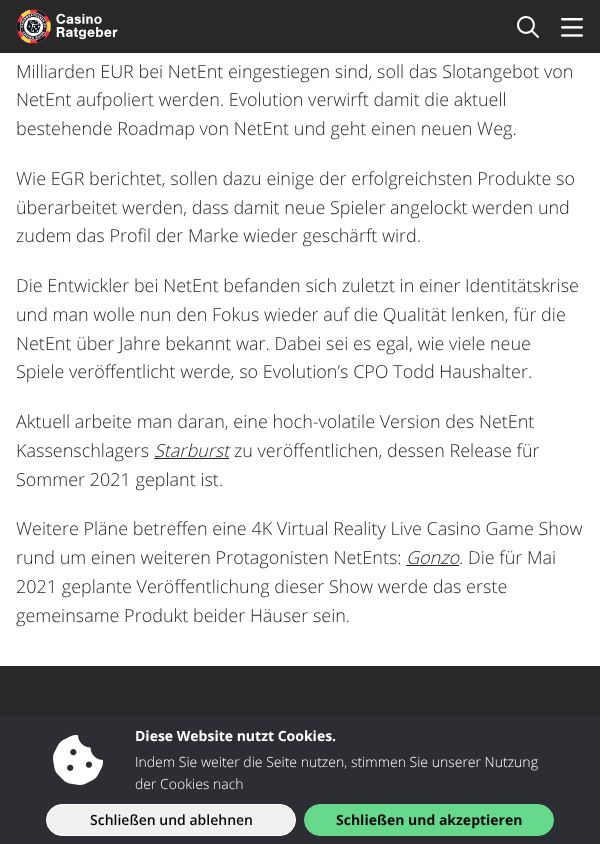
async function draw(canvas) {
  canvas.width = 600
  canvas.height = 844
  const ctx = canvas.getContext('2d')
  ctx.miterLimit = 4
  ctx.fontKerning = 'normal'
  async function loadImage(src) {
    const img = new Image()
    img.src = src
    await img.decode()
    return img
  }

  ctx.fillStyle = '#fff'
  ctx.fillRect(0, 0, 600, 844)
  ctx.fillStyle = '#282828'
  ctx.fillRect(0, 0, 600, 53)
  ctx.drawImage(await loadImage('image0.png'), 16, 9, 102, 35)
  ctx.drawImage(await loadImage('image1.png'), 517, 16, 22, 22)
  ctx.drawImage(await loadImage('image2.png'), 561, 18, 22, 19)
  ctx.font = '300 18px Open Sans'
  ctx.fillStyle = '#262626'
  ctx.fillText('Milliarden EUR bei NetEnt eingestiegen sind, soll das Slotangebot von', 16, 78)
  ctx.fillText('NetEnt aufpoliert werden. Evolution verwirft damit die aktuell', 16, 106)
  ctx.fillText('bestehende Roadmap von NetEnt und geht einen neuen Weg.', 16, 135)
  ctx.fillText('Wie EGR berichtet, sollen dazu einige der erfolgreichsten Produkte so', 16, 185)
  ctx.fillText('überarbeitet werden, dass damit neue Spieler angelockt werden und', 16, 214)
  ctx.fillText('zudem das Profil der Marke wieder geschärft wird.', 16, 242)
  ctx.fillText('Die Entwickler bei NetEnt befanden sich zuletzt in einer Identitätskrise', 16, 292)
  ctx.fillText('und man wolle nun den Fokus wieder auf die Qualität lenken, für die', 16, 321)
  ctx.fillText('NetEnt über Jahre bekannt war. Dabei sei es egal, wie viele neue', 16, 350)
  ctx.fillText('Spiele veröffentlicht werde, so Evolution’s CPO Todd Haushalter.', 16, 378)
  ctx.fillText('Aktuell arbeite man daran, eine hoch-volatile Version des NetEnt', 16, 428)
  ctx.fillText('Kassenschlagers', 16, 457)
  ctx.font = 'italic 300 18px Open Sans'
  ctx.fillText('Starburst', 154, 457)
  ctx.fillRect(154, 458, 75, 1)
  ctx.font = '300 18px Open Sans'
  ctx.fillText('zu veröffentlichen, dessen Release für', 234, 457)
  ctx.fillText('Sommer 2021 geplant ist.', 16, 486)
  ctx.fillText('Weitere Pläne betreffen eine 4K Virtual Reality Live Casino Game Show', 16, 535)
  ctx.fillText('rund um einen weiteren Protagonisten NetEnts:', 16, 564)
  ctx.font = 'italic 300 18px Open Sans'
  ctx.fillText('Gonzo', 406, 564)
  ctx.fillRect(406, 565, 53, 1)
  ctx.font = '300 18px Open Sans'
  ctx.fillText('. Die für Mai', 459, 564)
  ctx.fillText('2021 geplante Veröffentlichung dieser Show werde das erste', 16, 593)
  ctx.fillText('gemeinsame Produkt beider Häuser sein.', 16, 622)
  ctx.fillStyle = '#282828'
  ctx.fillRect(0, 666, 600, 51)
  ctx.fillStyle = '#2c2e33'
  ctx.fillRect(0, 717, 600, 127)
  ctx.drawImage(await loadImage('image3.png'), 53, 735, 50, 50)
  ctx.font = 'bold 14px Open Sans'
  ctx.fillStyle = '#fff'
  ctx.fillText('Diese Website nutzt Cookies.', 135, 741)
  ctx.font = '300 14px Open Sans'
  ctx.fillText('Indem Sie weiter die Seite nutzen, stimmen Sie unserer Nutzung', 135, 767)
  ctx.fillText('der Cookies nach', 135, 789)
  ctx.fillStyle = '#f0f0f0'
  ctx.beginPath()
  ctx.roundRect(46.5, 804.5, 249, 31, 15.5)
  ctx.fill()
  ctx.strokeStyle = '#fff'
  ctx.stroke()
  ctx.font = '600 14px Open Sans'
  ctx.fillStyle = '#0a0a0d'
  ctx.fillText('Schließen und ablehnen', 90, 825)
  ctx.fillStyle = '#66d98c'
  ctx.beginPath()
  ctx.roundRect(304.5, 804.5, 249, 31, 15.5)
  ctx.fill()
  ctx.strokeStyle = '#66d98c'
  ctx.stroke()
  ctx.font = 'bold 14px Open Sans'
  ctx.fillStyle = '#0a0a0d'
  ctx.fillText('Schließen und akzeptieren', 336, 825)
}

draw(document.querySelector('canvas'))
